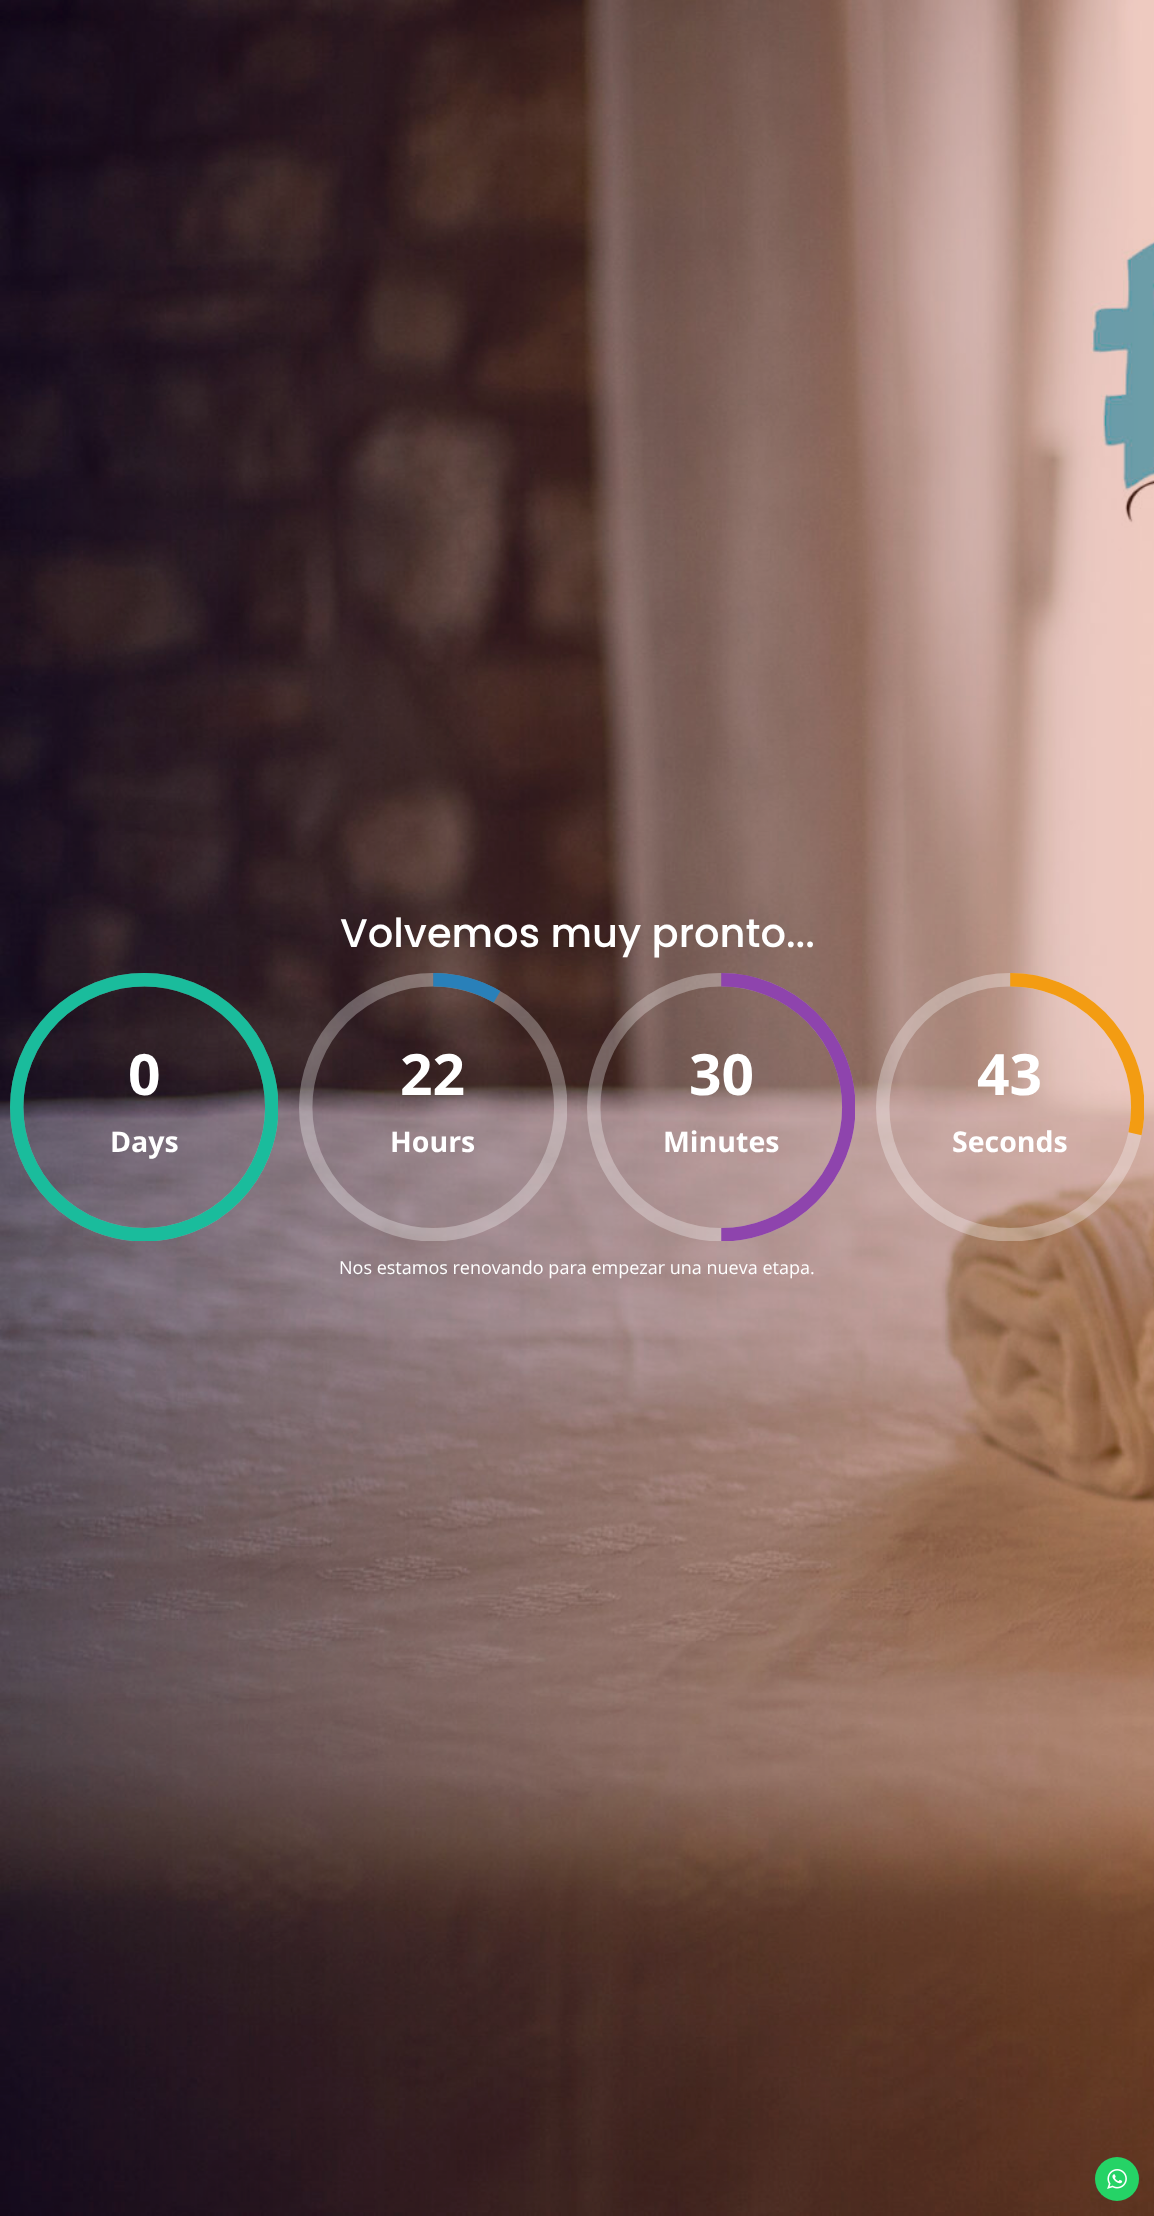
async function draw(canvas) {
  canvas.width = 1154
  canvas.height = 2216
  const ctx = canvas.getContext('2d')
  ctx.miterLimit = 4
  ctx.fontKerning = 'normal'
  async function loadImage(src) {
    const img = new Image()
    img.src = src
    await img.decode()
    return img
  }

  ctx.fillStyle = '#fff'
  ctx.fillRect(0, 0, 1154, 2216)
  ctx.drawImage(await loadImage('image0.png'), 0, 0, 1154, 2216)
  ctx.font = '500 40px Poppins'
  ctx.fillText('Volvemos muy pronto...', 340, 947)
  ctx.drawImage(await loadImage('image1.png'), 10, 973, 268, 268)
  ctx.font = 'bold 57px Open Sans'
  ctx.fillText('0', 128, 1095)
  ctx.font = 'bold 28.5px Open Sans'
  ctx.fillText('Days', 110, 1152)
  ctx.drawImage(await loadImage('image2.png'), 299, 973, 268, 268)
  ctx.font = 'bold 57px Open Sans'
  ctx.fillText('22', 400, 1095)
  ctx.font = 'bold 28.5px Open Sans'
  ctx.fillText('Hours', 390, 1152)
  ctx.drawImage(await loadImage('image3.png'), 587, 973, 268, 268)
  ctx.font = 'bold 57px Open Sans'
  ctx.fillText('30', 689, 1095)
  ctx.font = 'bold 28.5px Open Sans'
  ctx.fillText('Minutes', 663, 1152)
  ctx.drawImage(await loadImage('image4.png'), 876, 973, 268, 268)
  ctx.font = 'bold 57px Open Sans'
  ctx.fillText('43', 977, 1095)
  ctx.font = 'bold 28.5px Open Sans'
  ctx.fillText('Seconds', 952, 1152)
  ctx.font = '18px Open Sans'
  ctx.fillText('Nos estamos renovando para empezar una nueva etapa.', 339, 1274)
  ctx.fillStyle = '#25d366'
  ctx.beginPath()
  ctx.arc(1117, 2179, 22, 0, 2 * Math.PI)
  ctx.fill()
  ctx.drawImage(await loadImage('image5.png'), 1107, 2169, 20, 20)
}

draw(document.querySelector('canvas'))
